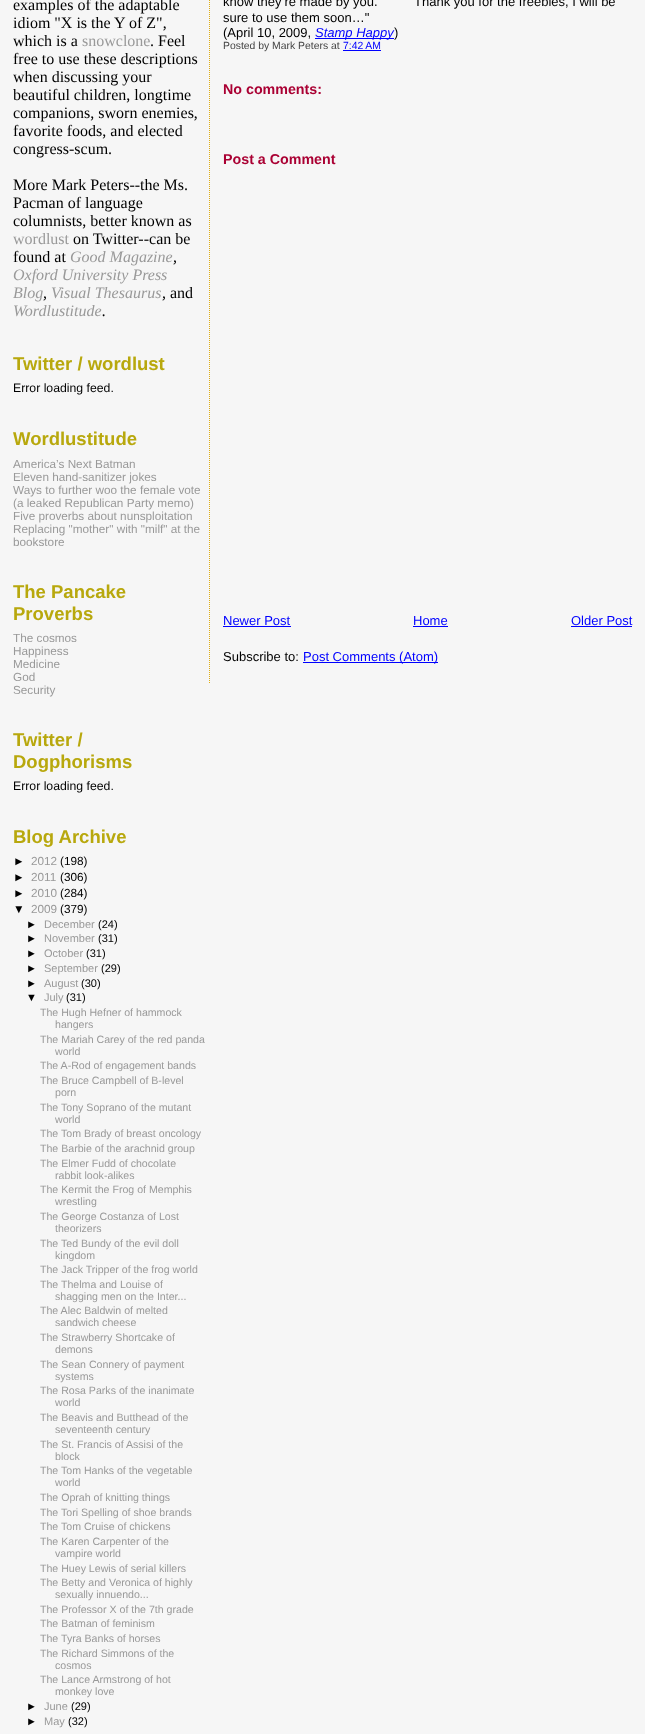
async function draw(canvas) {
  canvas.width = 645
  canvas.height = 1734
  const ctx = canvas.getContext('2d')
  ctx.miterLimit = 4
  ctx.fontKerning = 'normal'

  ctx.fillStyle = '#f6f6f6'
  ctx.fillRect(0, 0, 645, 1734)
  ctx.font = '16px Liberation Serif'
  ctx.fillStyle = '#000'
  ctx.fillText('examples of the adaptable', 13, 10)
  ctx.fillText('idiom "X is the Y of Z",', 13, 28)
  ctx.fillText('which is a', 13, 46)
  ctx.fillStyle = '#999'
  ctx.fillText('snowclone', 82, 46)
  ctx.fillStyle = '#000'
  ctx.fillText('. Feel', 150, 46)
  ctx.fillText('free to use these descriptions', 13, 64)
  ctx.fillText('when discussing your', 13, 82)
  ctx.fillText('beautiful children, longtime', 13, 100)
  ctx.fillText('companions, sworn enemies,', 13, 118)
  ctx.fillText('favorite foods, and elected', 13, 136)
  ctx.fillText('congress-scum.', 13, 154)
  ctx.fillText('More Mark Peters--the Ms.', 13, 190)
  ctx.fillText('Pacman of language', 13, 208)
  ctx.fillText('columnists, better known as', 13, 226)
  ctx.fillStyle = '#999'
  ctx.fillText('wordlust', 13, 244)
  ctx.fillStyle = '#000'
  ctx.fillText('on Twitter--can be', 73, 244)
  ctx.fillText('found at', 13, 262)
  ctx.font = 'italic 16px Liberation Serif'
  ctx.fillStyle = '#999'
  ctx.fillText('Good Magazine', 70, 262)
  ctx.fillStyle = '#000'
  ctx.fillText(',', 173, 262)
  ctx.fillStyle = '#999'
  ctx.fillText('Oxford University Press', 13, 280)
  ctx.fillText('Blog', 13, 298)
  ctx.fillStyle = '#000'
  ctx.fillText(',', 43, 298)
  ctx.fillStyle = '#999'
  ctx.fillText('Visual Thesaurus', 51, 298)
  ctx.fillStyle = '#000'
  ctx.fillText(',', 162, 298)
  ctx.font = '16px Liberation Serif'
  ctx.fillText('and', 170, 298)
  ctx.font = 'italic 16px Liberation Serif'
  ctx.fillStyle = '#999'
  ctx.fillText('Wordlustitude', 13, 316)
  ctx.fillStyle = '#000'
  ctx.fillText('.', 102, 316)
  ctx.font = 'bold 18.5px Liberation Sans'
  ctx.fillStyle = '#b8a80d'
  ctx.fillText('Twitter / wordlust', 13, 370)
  ctx.font = '12.25px Liberation Sans'
  ctx.fillStyle = '#000'
  ctx.fillText('Error loading feed.', 13, 392)
  ctx.font = 'bold 18.5px Liberation Sans'
  ctx.fillStyle = '#b8a80d'
  ctx.fillText('Wordlustitude', 13, 445)
  ctx.font = '11.75px Liberation Sans'
  ctx.fillStyle = '#999'
  ctx.fillText('America’s Next Batman', 13, 468)
  ctx.fillText('Eleven hand-sanitizer jokes', 13, 481)
  ctx.fillText('Ways to further woo the female vote', 13, 494)
  ctx.fillText('(a leaked Republican Party memo)', 13, 507)
  ctx.fillText('Five proverbs about nunsploitation', 13, 520)
  ctx.fillText('Replacing "mother" with "milf" at the', 13, 533)
  ctx.fillText('bookstore', 13, 546)
  ctx.font = 'bold 18.5px Liberation Sans'
  ctx.fillStyle = '#b8a80d'
  ctx.fillText('The Pancake', 13, 598)
  ctx.fillText('Proverbs', 13, 620)
  ctx.font = '11.75px Liberation Sans'
  ctx.fillStyle = '#999'
  ctx.fillText('The cosmos', 13, 642)
  ctx.fillText('Happiness', 13, 655)
  ctx.fillText('Medicine', 13, 668)
  ctx.fillText('God', 13, 681)
  ctx.fillText('Security', 13, 694)
  ctx.font = 'bold 18.5px Liberation Sans'
  ctx.fillStyle = '#b8a80d'
  ctx.fillText('Twitter /', 13, 746)
  ctx.fillText('Dogphorisms', 13, 768)
  ctx.font = '12.25px Liberation Sans'
  ctx.fillStyle = '#000'
  ctx.fillText('Error loading feed.', 13, 790)
  ctx.font = 'bold 18.5px Liberation Sans'
  ctx.fillStyle = '#b8a80d'
  ctx.fillText('Blog Archive', 13, 843)
  ctx.font = '11.75px Liberation Sans'
  ctx.fillStyle = '#000'
  ctx.fillText('►', 13, 865)
  ctx.fillStyle = '#999'
  ctx.fillText('2012', 31, 865)
  ctx.fillStyle = '#000'
  ctx.fillText('(198)', 60, 865)
  ctx.fillText('►', 13, 881)
  ctx.fillStyle = '#999'
  ctx.fillText('2011', 31, 881)
  ctx.fillStyle = '#000'
  ctx.fillText('(306)', 60, 881)
  ctx.fillText('►', 13, 897)
  ctx.fillStyle = '#999'
  ctx.fillText('2010', 31, 897)
  ctx.fillStyle = '#000'
  ctx.fillText('(284)', 60, 897)
  ctx.fillText('▼', 13, 913)
  ctx.fillStyle = '#999'
  ctx.fillText('2009', 31, 913)
  ctx.fillStyle = '#000'
  ctx.fillText('(379)', 60, 913)
  ctx.font = '11px Liberation Sans'
  ctx.fillText('►', 26, 928)
  ctx.fillStyle = '#999'
  ctx.fillText('December', 44, 928)
  ctx.fillStyle = '#000'
  ctx.fillText('(24)', 98, 928)
  ctx.fillText('►', 26, 942)
  ctx.fillStyle = '#999'
  ctx.fillText('November', 44, 942)
  ctx.fillStyle = '#000'
  ctx.fillText('(31)', 98, 942)
  ctx.fillText('►', 26, 957)
  ctx.fillStyle = '#999'
  ctx.fillText('October', 44, 957)
  ctx.fillStyle = '#000'
  ctx.fillText('(31)', 86, 957)
  ctx.fillText('►', 26, 972)
  ctx.fillStyle = '#999'
  ctx.fillText('September', 44, 972)
  ctx.fillStyle = '#000'
  ctx.fillText('(29)', 101, 972)
  ctx.fillText('►', 26, 987)
  ctx.fillStyle = '#999'
  ctx.fillText('August', 44, 987)
  ctx.fillStyle = '#000'
  ctx.fillText('(30)', 81, 987)
  ctx.fillText('▼', 26, 1001)
  ctx.fillStyle = '#999'
  ctx.fillText('July', 44, 1001)
  ctx.fillStyle = '#000'
  ctx.fillText('(31)', 66, 1001)
  ctx.font = '10.6px Liberation Sans'
  ctx.fillStyle = '#999'
  ctx.fillText('The Hugh Hefner of hammock', 40, 1016)
  ctx.fillText('hangers', 55, 1028)
  ctx.fillText('The Mariah Carey of the red panda', 40, 1043)
  ctx.fillText('world', 55, 1055)
  ctx.fillText('The A-Rod of engagement bands', 40, 1069)
  ctx.fillText('The Bruce Campbell of B-level', 40, 1084)
  ctx.fillText('porn', 55, 1096)
  ctx.fillText('The Tony Soprano of the mutant', 40, 1111)
  ctx.fillText('world', 55, 1123)
  ctx.fillText('The Tom Brady of breast oncology', 40, 1137)
  ctx.fillText('The Barbie of the arachnid group', 40, 1152)
  ctx.fillText('The Elmer Fudd of chocolate', 40, 1167)
  ctx.fillText('rabbit look-alikes', 55, 1179)
  ctx.fillText('The Kermit the Frog of Memphis', 40, 1193)
  ctx.fillText('wrestling', 55, 1205)
  ctx.fillText('The George Costanza of Lost', 40, 1220)
  ctx.fillText('theorizers', 55, 1232)
  ctx.fillText('The Ted Bundy of the evil doll', 40, 1247)
  ctx.fillText('kingdom', 55, 1259)
  ctx.fillText('The Jack Tripper of the frog world', 40, 1273)
  ctx.fillText('The Thelma and Louise of', 40, 1288)
  ctx.fillText('shagging men on the Inter...', 55, 1300)
  ctx.fillText('The Alec Baldwin of melted', 40, 1314)
  ctx.fillText('sandwich cheese', 55, 1326)
  ctx.fillText('The Strawberry Shortcake of', 40, 1341)
  ctx.fillText('demons', 55, 1353)
  ctx.fillText('The Sean Connery of payment', 40, 1368)
  ctx.fillText('systems', 55, 1380)
  ctx.fillText('The Rosa Parks of the inanimate', 40, 1394)
  ctx.fillText('world', 55, 1406)
  ctx.fillText('The Beavis and Butthead of the', 40, 1421)
  ctx.fillText('seventeenth century', 55, 1433)
  ctx.fillText('The St. Francis of Assisi of the', 40, 1448)
  ctx.fillText('block', 55, 1460)
  ctx.fillText('The Tom Hanks of the vegetable', 40, 1474)
  ctx.fillText('world', 55, 1486)
  ctx.fillText('The Oprah of knitting things', 40, 1501)
  ctx.fillText('The Tori Spelling of shoe brands', 40, 1516)
  ctx.fillText('The Tom Cruise of chickens', 40, 1530)
  ctx.fillText('The Karen Carpenter of the', 40, 1545)
  ctx.fillText('vampire world', 55, 1557)
  ctx.fillText('The Huey Lewis of serial killers', 40, 1572)
  ctx.fillText('The Betty and Veronica of highly', 40, 1586)
  ctx.fillText('sexually innuendo...', 55, 1598)
  ctx.fillText('The Professor X of the 7th grade', 40, 1613)
  ctx.fillText('The Batman of feminism', 40, 1627)
  ctx.fillText('The Tyra Banks of horses', 40, 1642)
  ctx.fillText('The Richard Simmons of the', 40, 1657)
  ctx.fillText('cosmos', 55, 1669)
  ctx.fillText('The Lance Armstrong of hot', 40, 1683)
  ctx.fillText('monkey love', 55, 1695)
  ctx.font = '11px Liberation Sans'
  ctx.fillStyle = '#000'
  ctx.fillText('►', 26, 1710)
  ctx.fillStyle = '#999'
  ctx.fillText('June', 44, 1710)
  ctx.fillStyle = '#000'
  ctx.fillText('(29)', 71, 1710)
  ctx.fillText('►', 26, 1725)
  ctx.fillStyle = '#999'
  ctx.fillText('May', 44, 1725)
  ctx.fillStyle = '#000'
  ctx.fillText('(32)', 68, 1725)
  ctx.beginPath()
  ctx.moveTo(209.5, -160)
  ctx.lineTo(209.5, 684)
  ctx.strokeStyle = '#e0ad12'
  ctx.setLineDash([1, 1])
  ctx.stroke()
  ctx.font = '13px Liberation Sans'
  ctx.fillText('know they’re made by you.', 223, 6)
  ctx.fillText('Thank you for the freebies, I will be', 414, 6)
  ctx.fillText('sure to use them soon…"', 223, 22)
  ctx.fillText('(April 10, 2009,', 223, 37)
  ctx.fillStyle = '#00f'
  ctx.fillRect(315, 38, 79, 1)
  ctx.font = 'italic 13px Liberation Sans'
  ctx.fillText('Stamp Happy', 315, 37)
  ctx.font = '13px Liberation Sans'
  ctx.fillStyle = '#000'
  ctx.fillText(')', 394, 37)
  ctx.font = '10.4px Liberation Sans'
  ctx.fillStyle = '#444'
  ctx.fillText('Posted by Mark Peters at', 223, 49)
  ctx.fillStyle = '#00f'
  ctx.fillText('7:42 AM', 343, 49)
  ctx.fillRect(343, 50, 38, 1)
  ctx.font = 'bold 14.25px Liberation Sans'
  ctx.fillStyle = '#a03'
  ctx.fillText('No comments:', 223, 94)
  ctx.fillText('Post a Comment', 223, 164)
  ctx.font = '13px Liberation Sans'
  ctx.fillStyle = '#00f'
  ctx.fillText('Newer Post', 223, 625)
  ctx.fillRect(223, 626, 68, 1)
  ctx.fillText('Home', 413, 625)
  ctx.fillRect(413, 626, 35, 1)
  ctx.fillText('Older Post', 571, 625)
  ctx.fillRect(571, 626, 61, 1)
  ctx.fillStyle = '#000'
  ctx.fillText('Subscribe to:', 223, 661)
  ctx.fillStyle = '#00f'
  ctx.fillRect(303, 662, 135, 1)
  ctx.fillText('Post Comments (Atom)', 303, 661)
}

draw(document.querySelector('canvas'))
